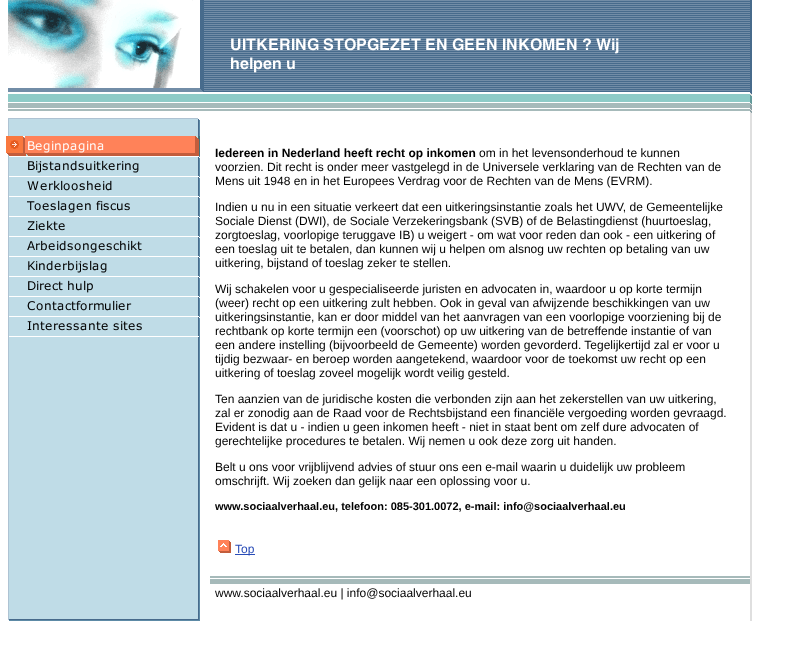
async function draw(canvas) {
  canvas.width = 810
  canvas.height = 666
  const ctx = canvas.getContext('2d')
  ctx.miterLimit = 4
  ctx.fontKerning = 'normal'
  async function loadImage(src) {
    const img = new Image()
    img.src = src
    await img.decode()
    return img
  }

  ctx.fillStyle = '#fff'
  ctx.fillRect(0, 0, 810, 666)
  ctx.drawImage(await loadImage('image0.png'), 8, 0, 196, 92)
  ctx.drawImage(await loadImage('image1.png'), 204, 0, 438, 92)
  ctx.drawImage(await loadImage('image2.png'), 231, 38, 388, 35)
  ctx.drawImage(await loadImage('image3.png'), 642, 0, 108, 92)
  ctx.drawImage(await loadImage('image4.png'), 8, 94, 196, 17)
  ctx.drawImage(await loadImage('image5.png'), 204, 94, 546, 17)
  ctx.drawImage(await loadImage('image6.png'), 8, 118, 192, 458)
  ctx.drawImage(await loadImage('image7.png'), 9, 118, 191, 2)
  ctx.drawImage(await loadImage('image8.png'), 6, 136, 194, 20)
  ctx.drawImage(await loadImage('image9.png'), 9, 156, 191, 17)
  ctx.drawImage(await loadImage('image10.png'), 9, 176, 191, 15)
  ctx.drawImage(await loadImage('image11.png'), 9, 196, 191, 17)
  ctx.drawImage(await loadImage('image12.png'), 9, 216, 191, 15)
  ctx.drawImage(await loadImage('image13.png'), 9, 236, 191, 17)
  ctx.drawImage(await loadImage('image14.png'), 9, 256, 191, 17)
  ctx.drawImage(await loadImage('image15.png'), 9, 276, 191, 17)
  ctx.drawImage(await loadImage('image16.png'), 9, 296, 191, 15)
  ctx.drawImage(await loadImage('image17.png'), 9, 316, 191, 15)
  ctx.fillRect(9, 336, 190, 1)
  ctx.font = 'bold 12px Liberation Sans'
  ctx.fillStyle = '#000'
  ctx.fillText('Iedereen in Nederland heeft recht op inkomen', 215, 157)
  ctx.font = '12px Liberation Sans'
  ctx.fillText('om in het levensonderhoud te kunnen', 479, 157)
  ctx.fillText('voorzien. Dit recht is onder meer vastgelegd in de Universele verklaring van de Rechten van de', 215, 171)
  ctx.fillText('Mens uit 1948 en in het Europees Verdrag voor de Rechten van de Mens (EVRM).', 215, 185)
  ctx.fillText('Indien u nu in een situatie verkeert dat een uitkeringsinstantie zoals het UWV, de Gemeentelijke', 215, 211)
  ctx.fillText('Sociale Dienst (DWI), de Sociale Verzekeringsbank (SVB) of de Belastingdienst (huurtoeslag,', 215, 225)
  ctx.fillText('zorgtoeslag, voorlopige teruggave IB) u weigert - om wat voor reden dan ook - een uitkering of', 215, 239)
  ctx.fillText('een toeslag uit te betalen, dan kunnen wij u helpen om alsnog uw rechten op betaling van uw', 215, 253)
  ctx.fillText('uitkering, bijstand of toeslag zeker te stellen.', 215, 267)
  ctx.fillText('Wij schakelen voor u gespecialiseerde juristen en advocaten in, waardoor u op korte termijn', 215, 293)
  ctx.fillText('(weer) recht op een uitkering zult hebben. Ook in geval van afwijzende beschikkingen van uw', 215, 307)
  ctx.fillText('uitkeringsinstantie, kan er door middel van het aanvragen van een voorlopige voorziening bij de', 215, 321)
  ctx.fillText('rechtbank op korte termijn een (voorschot) op uw uitkering van de betreffende instantie of van', 215, 335)
  ctx.fillText('een andere instelling (bijvoorbeeld de Gemeente) worden gevorderd. Tegelijkertijd zal er voor u', 215, 349)
  ctx.fillText('tijdig bezwaar- en beroep worden aangetekend, waardoor voor de toekomst uw recht op een', 215, 363)
  ctx.fillText('uitkering of toeslag zoveel mogelijk wordt veilig gesteld.', 215, 377)
  ctx.fillText('Ten aanzien van de juridische kosten die verbonden zijn aan het zekerstellen van uw uitkering,', 215, 403)
  ctx.fillText('zal er zonodig aan de Raad voor de Rechtsbijstand een financiële vergoeding worden gevraagd.', 215, 417)
  ctx.fillText('Evident is dat u - indien u geen inkomen heeft - niet in staat bent om zelf dure advocaten of', 215, 431)
  ctx.fillText('gerechtelijke procedures te betalen. Wij nemen u ook deze zorg uit handen.', 215, 445)
  ctx.fillText('Belt u ons voor vrijblijvend advies of stuur ons een e-mail waarin u duidelijk uw probleem', 215, 471)
  ctx.fillText('omschrijft. Wij zoeken dan gelijk naar een oplossing voor u.', 215, 485)
  ctx.font = 'bold 11px Liberation Sans'
  ctx.fillText('www.sociaalverhaal.eu, telefoon: 085-301.0072, e-mail: info@sociaalverhaal.eu', 215, 510)
  ctx.drawImage(await loadImage('image18.png'), 218, 540, 13, 13)
  ctx.fillStyle = '#294cb7'
  ctx.fillRect(235, 554, 20, 1)
  ctx.font = '12px Liberation Sans'
  ctx.fillText('Top', 235, 553)
  ctx.drawImage(await loadImage('image19.png'), 8, 576, 192, 10)
  ctx.drawImage(await loadImage('image20.png'), 210, 576, 540, 8)
  ctx.drawImage(await loadImage('image21.png'), 8, 586, 192, 35)
  ctx.drawImage(await loadImage('image22.png'), 8, 619, 191, 2)
  ctx.fillStyle = '#000'
  ctx.fillText('www.sociaalverhaal.eu | info@sociaalverhaal.eu', 215, 597)
  ctx.fillStyle = '#dfdfdf'
  ctx.fillRect(750, 113, 2, 508)
  ctx.drawImage(await loadImage('image23.png'), 750, 0, 2, 113)
}

draw(document.querySelector('canvas'))
